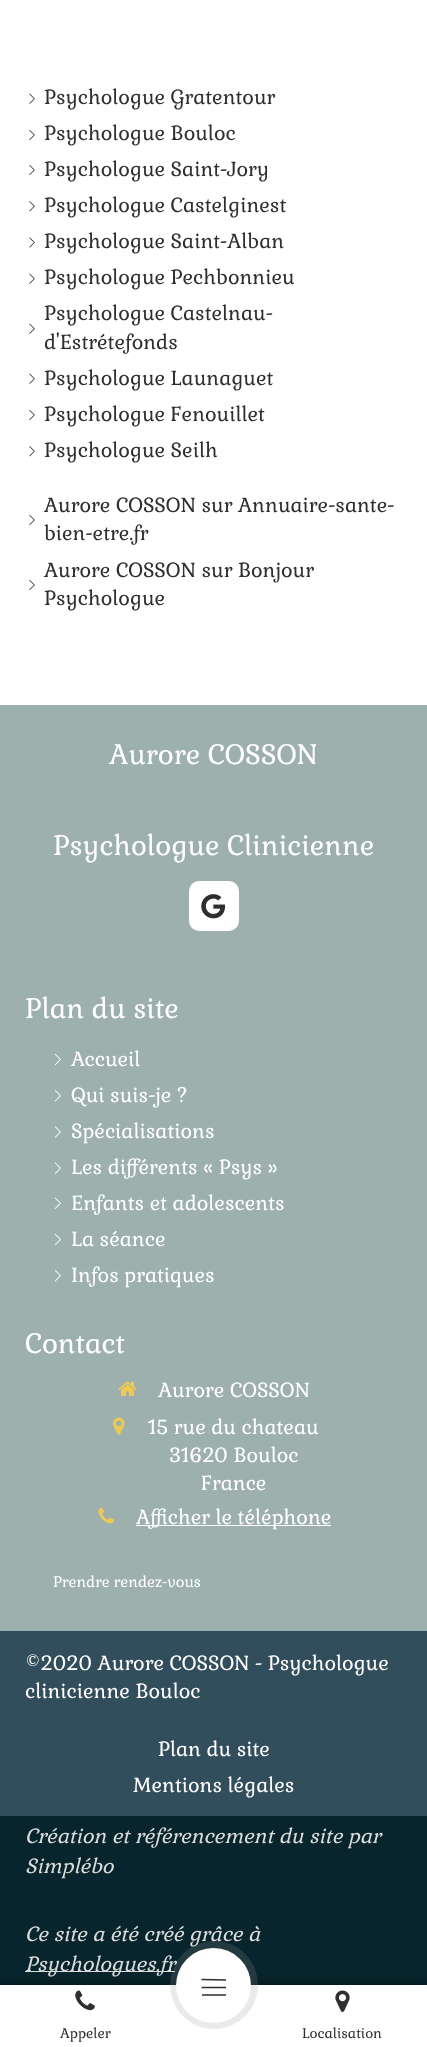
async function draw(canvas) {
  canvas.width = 427
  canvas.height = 2047
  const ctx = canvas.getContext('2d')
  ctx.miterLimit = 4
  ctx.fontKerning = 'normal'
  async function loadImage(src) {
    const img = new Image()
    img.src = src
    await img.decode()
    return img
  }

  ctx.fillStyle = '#fff'
  ctx.fillRect(0, 0, 427, 2047)
  ctx.drawImage(await loadImage('image0.png'), 29, 93, 6, 11)
  ctx.font = '20px Gabriela'
  ctx.fillStyle = '#2f2f2f'
  ctx.fillText('Psychologue Gratentour', 44, 104)
  ctx.drawImage(await loadImage('image1.png'), 29, 130, 6, 10)
  ctx.fillText('Psychologue Bouloc', 44, 140)
  ctx.drawImage(await loadImage('image1.png'), 29, 165, 6, 10)
  ctx.fillText('Psychologue Saint-Jory', 44, 176)
  ctx.drawImage(await loadImage('image2.png'), 29, 201, 6, 11)
  ctx.fillText('Psychologue Castelginest', 44, 212)
  ctx.drawImage(await loadImage('image3.png'), 29, 237, 6, 11)
  ctx.fillText('Psychologue Saint-Alban', 44, 248)
  ctx.drawImage(await loadImage('image0.png'), 29, 273, 6, 11)
  ctx.fillText('Psychologue Pechbonnieu', 44, 284)
  ctx.drawImage(await loadImage('image0.png'), 29, 323, 6, 11)
  ctx.fillText('Psychologue Castelnau-', 44, 320)
  ctx.fillText('d\'Estrétefonds', 44, 349)
  ctx.drawImage(await loadImage('image0.png'), 29, 373, 6, 11)
  ctx.fillText('Psychologue Launaguet', 44, 385)
  ctx.drawImage(await loadImage('image1.png'), 29, 410, 6, 10)
  ctx.fillText('Psychologue Fenouillet', 44, 421)
  ctx.drawImage(await loadImage('image2.png'), 29, 446, 6, 11)
  ctx.fillText('Psychologue Seilh', 44, 457)
  ctx.drawImage(await loadImage('image1.png'), 29, 515, 6, 10)
  ctx.fillText('Aurore COSSON sur Annuaire-sante-', 44, 512)
  ctx.fillText('bien-etre.fr', 44, 540)
  ctx.drawImage(await loadImage('image1.png'), 29, 580, 6, 10)
  ctx.fillText('Aurore COSSON sur Bonjour', 44, 577)
  ctx.fillText('Psychologue', 44, 605)
  ctx.fillStyle = '#9db0ae'
  ctx.fillRect(0, 705, 427, 926)
  ctx.font = '27.5px Gabriela'
  ctx.fillStyle = '#fff'
  ctx.fillText('Aurore COSSON', 109, 764)
  ctx.fillText('Psychologue Clinicienne', 53, 855)
  ctx.beginPath()
  ctx.roundRect(189, 881, 50, 50, 10)
  ctx.fill()
  ctx.drawImage(await loadImage('image4.png'), 201, 894, 25, 25)
  ctx.fillText('Plan du site', 25, 1018)
  ctx.drawImage(await loadImage('image5.png'), 54, 1053, 7, 13)
  ctx.font = '20px Gabriela'
  ctx.fillText('Accueil', 71, 1066)
  ctx.drawImage(await loadImage('image6.png'), 54, 1090, 7, 12)
  ctx.fillText('Qui suis-je ?', 71, 1102)
  ctx.drawImage(await loadImage('image7.png'), 54, 1126, 7, 12)
  ctx.fillText('Spécialisations', 71, 1138)
  ctx.drawImage(await loadImage('image8.png'), 54, 1162, 7, 12)
  ctx.fillText('Les différents « Psys »', 71, 1174)
  ctx.drawImage(await loadImage('image8.png'), 54, 1197, 7, 12)
  ctx.fillText('Enfants et adolescents', 71, 1210)
  ctx.drawImage(await loadImage('image5.png'), 54, 1233, 7, 13)
  ctx.fillText('La séance', 71, 1246)
  ctx.drawImage(await loadImage('image6.png'), 54, 1270, 7, 12)
  ctx.fillText('Infos pratiques', 71, 1282)
  ctx.font = '27.5px Gabriela'
  ctx.fillText('Contact', 25, 1353)
  ctx.drawImage(await loadImage('image9.png'), 118, 1381, 19, 15)
  ctx.font = '20px Gabriela'
  ctx.fillText('Aurore COSSON', 158, 1397)
  ctx.drawImage(await loadImage('image10.png'), 113, 1417, 12, 18)
  ctx.fillText('15 rue du chateau', 148, 1434)
  ctx.fillText('31620 Bouloc', 169, 1462)
  ctx.fillText('France', 201, 1490)
  ctx.drawImage(await loadImage('image11.png'), 98, 1507, 17, 17)
  ctx.fillRect(136, 1525, 195, 1)
  ctx.fillText('Afficher le téléphone', 136, 1524)
  ctx.font = '15px Gabriela'
  ctx.fillText('Prendre rendez-vous', 53, 1587)
  ctx.fillStyle = '#324d5c'
  ctx.fillRect(0, 1631, 427, 185)
  ctx.font = '20px Gabriela'
  ctx.fillStyle = '#fff'
  ctx.fillText('©2020 Aurore COSSON - Psychologue', 25, 1670)
  ctx.fillText('clinicienne Bouloc', 25, 1698)
  ctx.fillText('Plan du site', 158, 1756)
  ctx.fillText('Mentions légales', 133, 1792)
  ctx.fillStyle = '#08242c'
  ctx.fillRect(0, 1816, 427, 169)
  ctx.font = 'italic 20px Gabriela'
  ctx.fillStyle = '#dcdcdc'
  ctx.fillText('Création et référencement du site par', 25, 1843)
  ctx.fillText('Simplébo', 25, 1873)
  ctx.fillText('Ce site a été créé grâce à', 25, 1941)
  ctx.fillRect(25, 1971, 150, 1)
  ctx.fillText('Psychologues.fr', 25, 1971)
  ctx.fillStyle = '#00000080'
  ctx.filter = 'blur(6px)'
  ctx.beginPath()
  ctx.rect(0, 1985, 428, 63)
  ctx.fill()
  ctx.filter = 'none'
  ctx.fillStyle = '#fff'
  ctx.fillRect(0, 1985, 427, 62)
  ctx.fillStyle = '#96969633'
  ctx.beginPath()
  ctx.arc(214, 1985, 44, 0, 2 * Math.PI)
  ctx.fill()
  ctx.fillStyle = '#fff'
  ctx.beginPath()
  ctx.arc(213.5, 1985.5, 37.5, 0, 2 * Math.PI)
  ctx.fill()
  ctx.beginPath()
  ctx.moveTo(201.5, 1987.5)
  ctx.lineTo(226, 1987.5)
  ctx.moveTo(201.5, 1979.5)
  ctx.lineTo(226, 1980)
  ctx.strokeStyle = '#2f2f2f'
  ctx.lineWidth = 1.5
  ctx.stroke()
  ctx.fillStyle = '#636363'
  ctx.fillRect(202, 1994, 24, 2)
  ctx.drawImage(await loadImage('image12.png'), 75, 1990, 20, 21)
  ctx.font = '13.75px Gabriela'
  ctx.fillStyle = '#2f2f2f'
  ctx.fillText('Appeler', 60, 2038)
  ctx.drawImage(await loadImage('image13.png'), 335, 1990, 15, 22)
  ctx.fillText('Localisation', 302, 2038)
}

draw(document.querySelector('canvas'))
